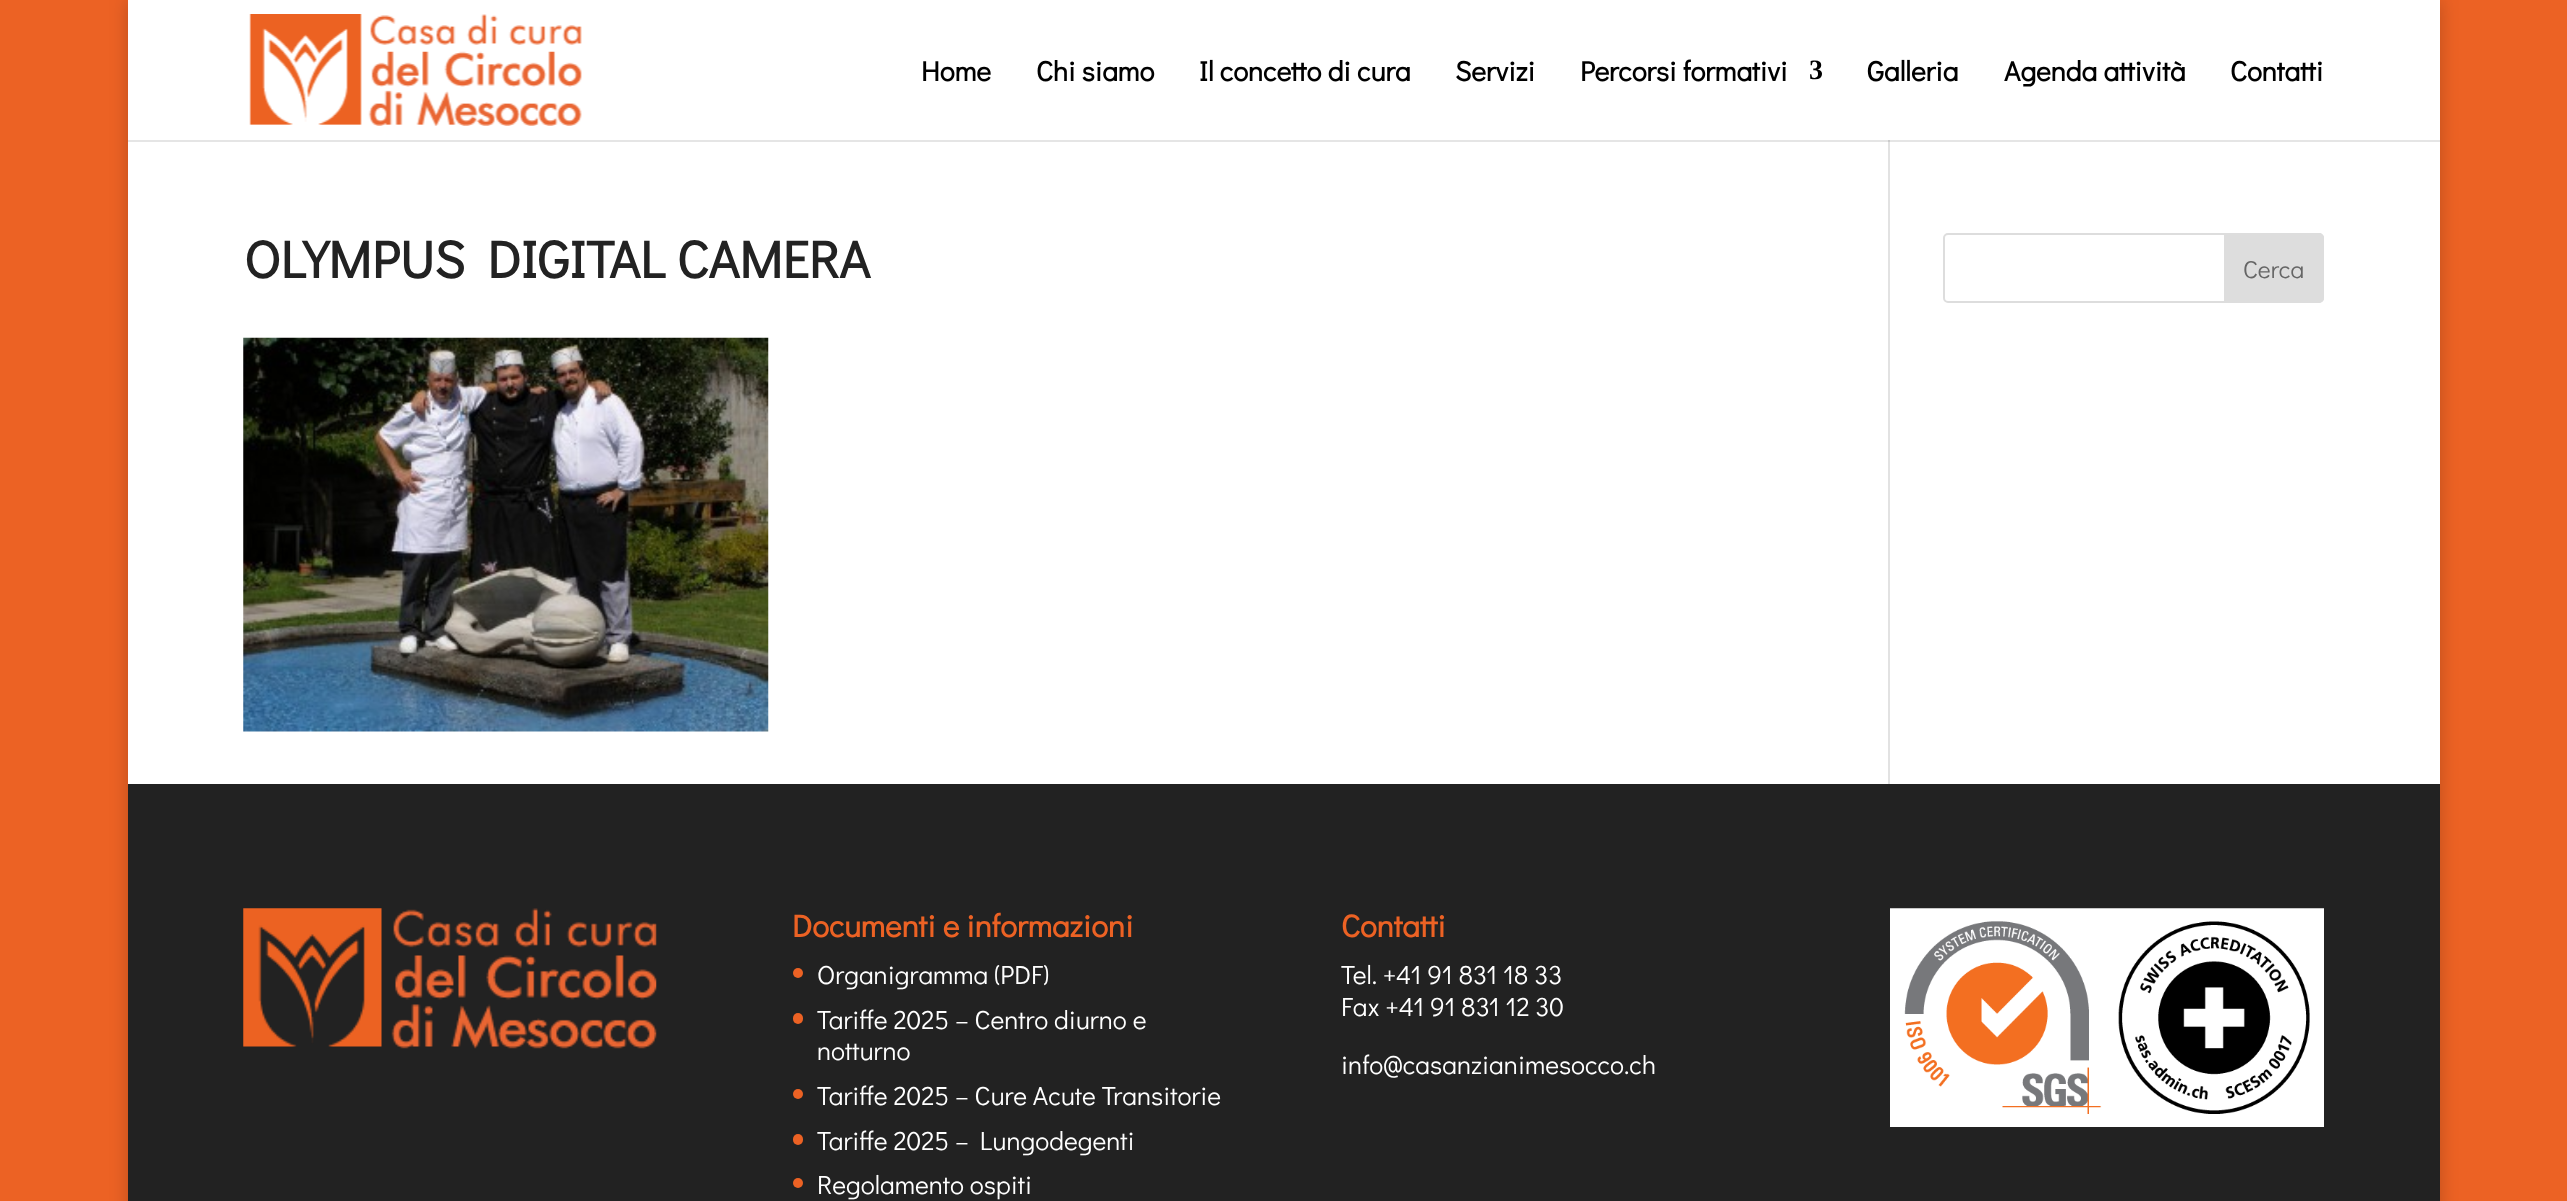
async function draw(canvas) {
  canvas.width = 2567
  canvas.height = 1201
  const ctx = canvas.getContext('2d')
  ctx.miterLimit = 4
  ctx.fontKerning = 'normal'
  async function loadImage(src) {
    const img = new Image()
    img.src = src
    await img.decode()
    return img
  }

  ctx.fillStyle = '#ec6224'
  ctx.fillRect(0, 0, 2567, 1201)
  ctx.fillStyle = '#00000033'
  ctx.filter = 'blur(9px)'
  ctx.beginPath()
  ctx.rect(128, 0, 2312, 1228)
  ctx.fill()
  ctx.filter = 'none'
  ctx.fillStyle = '#fff'
  ctx.fillRect(128, 0, 2312, 784)
  ctx.fillStyle = '#e2e2e2'
  ctx.fillRect(1888, 140, 2, 644)
  ctx.fillStyle = '#0000001a'
  ctx.beginPath()
  ctx.moveTo(128, 140)
  ctx.lineTo(128, 142)
  ctx.lineTo(2440, 142)
  ctx.lineTo(2440, 2)
  ctx.lineTo(2440, 140)
  ctx.closePath()
  ctx.fill()
  ctx.drawImage(await loadImage('image0.png'), 249, 14, 333, 112)
  ctx.font = 'bold 28px Didact Gothic'
  ctx.fillStyle = '#000'
  ctx.fillText('Home', 921, 81)
  ctx.fillText('Chi siamo', 1036, 81)
  ctx.fillText('Il concetto di cura', 1199, 81)
  ctx.fillText('Servizi', 1455, 81)
  ctx.fillText('Percorsi formativi', 1580, 81)
  ctx.font = 'bold 28px Liberation Serif'
  ctx.fillText('3', 1809, 79)
  ctx.font = 'bold 28px Didact Gothic'
  ctx.fillText('Galleria', 1867, 81)
  ctx.fillText('Agenda attività', 2004, 81)
  ctx.fillText('Contatti', 2230, 81)
  ctx.font = 'bold 52.5px Didact Gothic'
  ctx.fillStyle = '#222'
  ctx.fillText('OLYMPUS DIGITAL CAMERA', 244, 278)
  ctx.drawImage(await loadImage('image1.png'), 243, 337, 526, 395)
  ctx.beginPath()
  ctx.roundRect(1944, 234, 379, 68, 4)
  ctx.strokeStyle = '#ddd'
  ctx.lineWidth = 2
  ctx.stroke()
  ctx.fillStyle = '#ddd'
  ctx.beginPath()
  ctx.roundRect(2225, 234, 98, 68, [0, 4, 4, 0])
  ctx.fill()
  ctx.stroke()
  ctx.font = '24.5px Didact Gothic'
  ctx.fillStyle = '#666'
  ctx.fillText('Cerca', 2243, 278)
  ctx.fillStyle = '#222'
  ctx.fillRect(128, 784, 2312, 417)
  ctx.drawImage(await loadImage('image2.png'), 243, 908, 414, 141)
  ctx.font = 'bold 31.5px Didact Gothic'
  ctx.fillStyle = '#ec6224'
  ctx.fillText('Documenti e informazioni', 792, 937)
  ctx.beginPath()
  ctx.arc(798, 973, 5, 0, 2 * Math.PI)
  ctx.fill()
  ctx.font = '26.25px Didact Gothic'
  ctx.fillStyle = '#fff'
  ctx.fillText('Organigramma (PDF)', 817, 984)
  ctx.fillStyle = '#ec6224'
  ctx.beginPath()
  ctx.roundRect(793, 1013, 10, 11, 5)
  ctx.fill()
  ctx.fillStyle = '#fff'
  ctx.fillText('Tariffe 2025 – Centro diurno e', 817, 1029)
  ctx.fillText('notturno', 817, 1060)
  ctx.fillStyle = '#ec6224'
  ctx.beginPath()
  ctx.arc(798, 1094, 5, 0, 2 * Math.PI)
  ctx.fill()
  ctx.fillStyle = '#fff'
  ctx.fillText('Tariffe 2025 – Cure Acute Transitorie', 817, 1105)
  ctx.fillStyle = '#ec6224'
  ctx.beginPath()
  ctx.roundRect(793, 1134, 10, 11, 5)
  ctx.fill()
  ctx.fillStyle = '#fff'
  ctx.fillText('Tariffe 2025 – Lungodegenti', 817, 1150)
  ctx.fillStyle = '#ec6224'
  ctx.beginPath()
  ctx.arc(798, 1183, 5, 0, 2 * Math.PI)
  ctx.fill()
  ctx.fillStyle = '#fff'
  ctx.fillText('Regolamento ospiti', 817, 1194)
  ctx.font = 'bold 31.5px Didact Gothic'
  ctx.fillStyle = '#ec6224'
  ctx.fillText('Contatti', 1341, 937)
  ctx.font = '26.25px Didact Gothic'
  ctx.fillStyle = '#fff'
  ctx.fillText('Tel. +41 91 831 18 33', 1341, 984)
  ctx.fillText('Fax +41 91 831 12 30', 1341, 1016)
  ctx.fillText('info@casanzianimesocco.ch', 1341, 1074)
  ctx.drawImage(await loadImage('image3.png'), 1890, 908, 434, 219)
}

draw(document.querySelector('canvas'))
